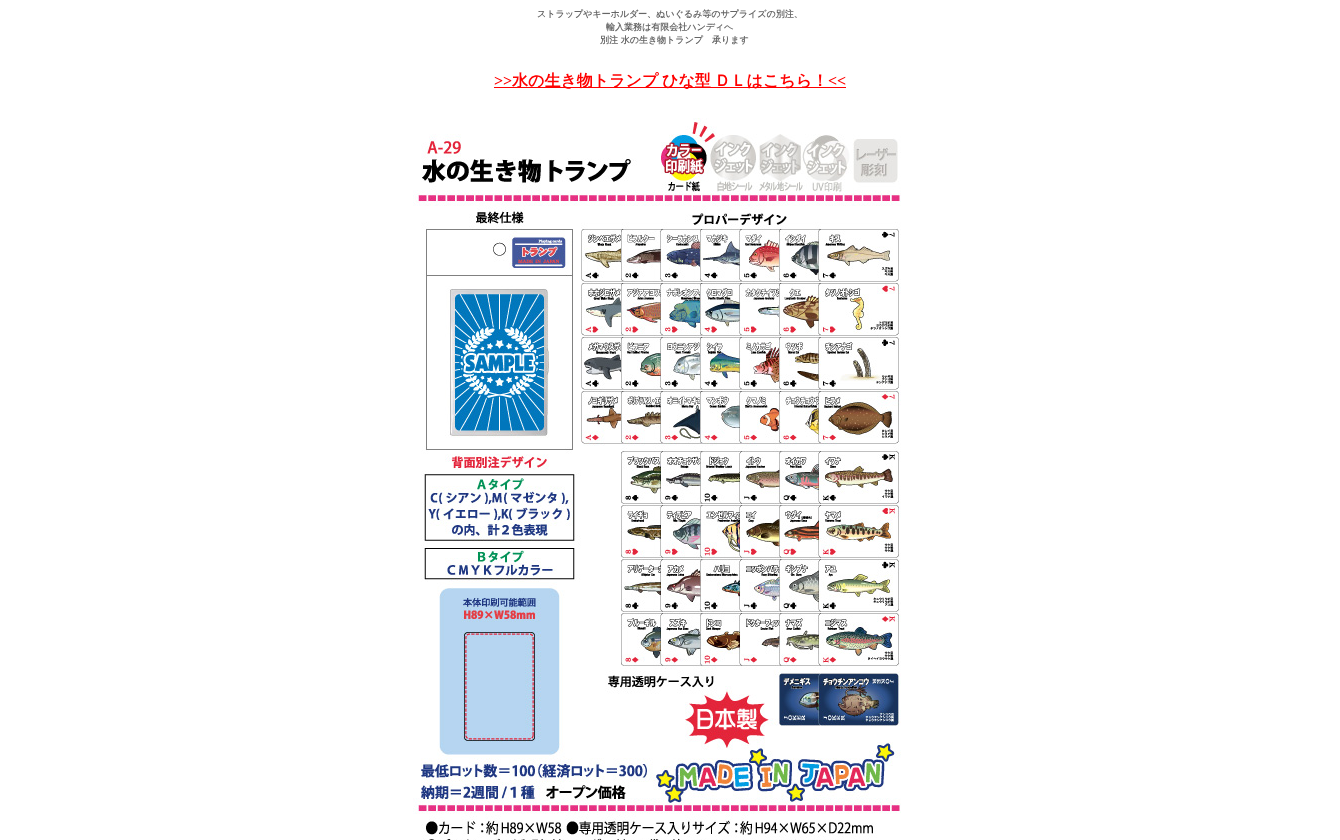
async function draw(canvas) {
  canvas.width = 1340
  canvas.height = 840
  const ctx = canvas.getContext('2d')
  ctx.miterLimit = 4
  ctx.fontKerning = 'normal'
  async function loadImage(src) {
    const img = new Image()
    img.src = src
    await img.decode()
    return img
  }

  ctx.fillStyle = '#fff'
  ctx.fillRect(0, 0, 1340, 840)
  ctx.font = 'bold 9px WenQuanYi Zen Hei'
  ctx.fillStyle = '#666'
  ctx.fillText('ストラップやキーホルダー、ぬいぐるみ等のサプライズの別注、', 537, 17)
  ctx.fillText('輸入業務は有限会社ハンディへ', 606, 30)
  ctx.fillText('別注 水の生き物トランプ　承ります', 600, 43)
  ctx.font = 'bold 16px Liberation Serif'
  ctx.fillStyle = '#f00'
  ctx.fillText('>>', 494, 86)
  ctx.fillRect(494, 87, 352, 1)
  ctx.wordSpacing = '-1px'
  ctx.font = 'bold 16px WenQuanYi Zen Hei'
  ctx.fillText('水の生き物トランプ ひな型 ＤＬはこちら！', 512, 86)
  ctx.wordSpacing = '0px'
  ctx.font = 'bold 16px Liberation Serif'
  ctx.fillText('<<', 828, 86)
  ctx.drawImage(await loadImage('image0.png'), 413, 118, 488, 722)
}

draw(document.querySelector('canvas'))
